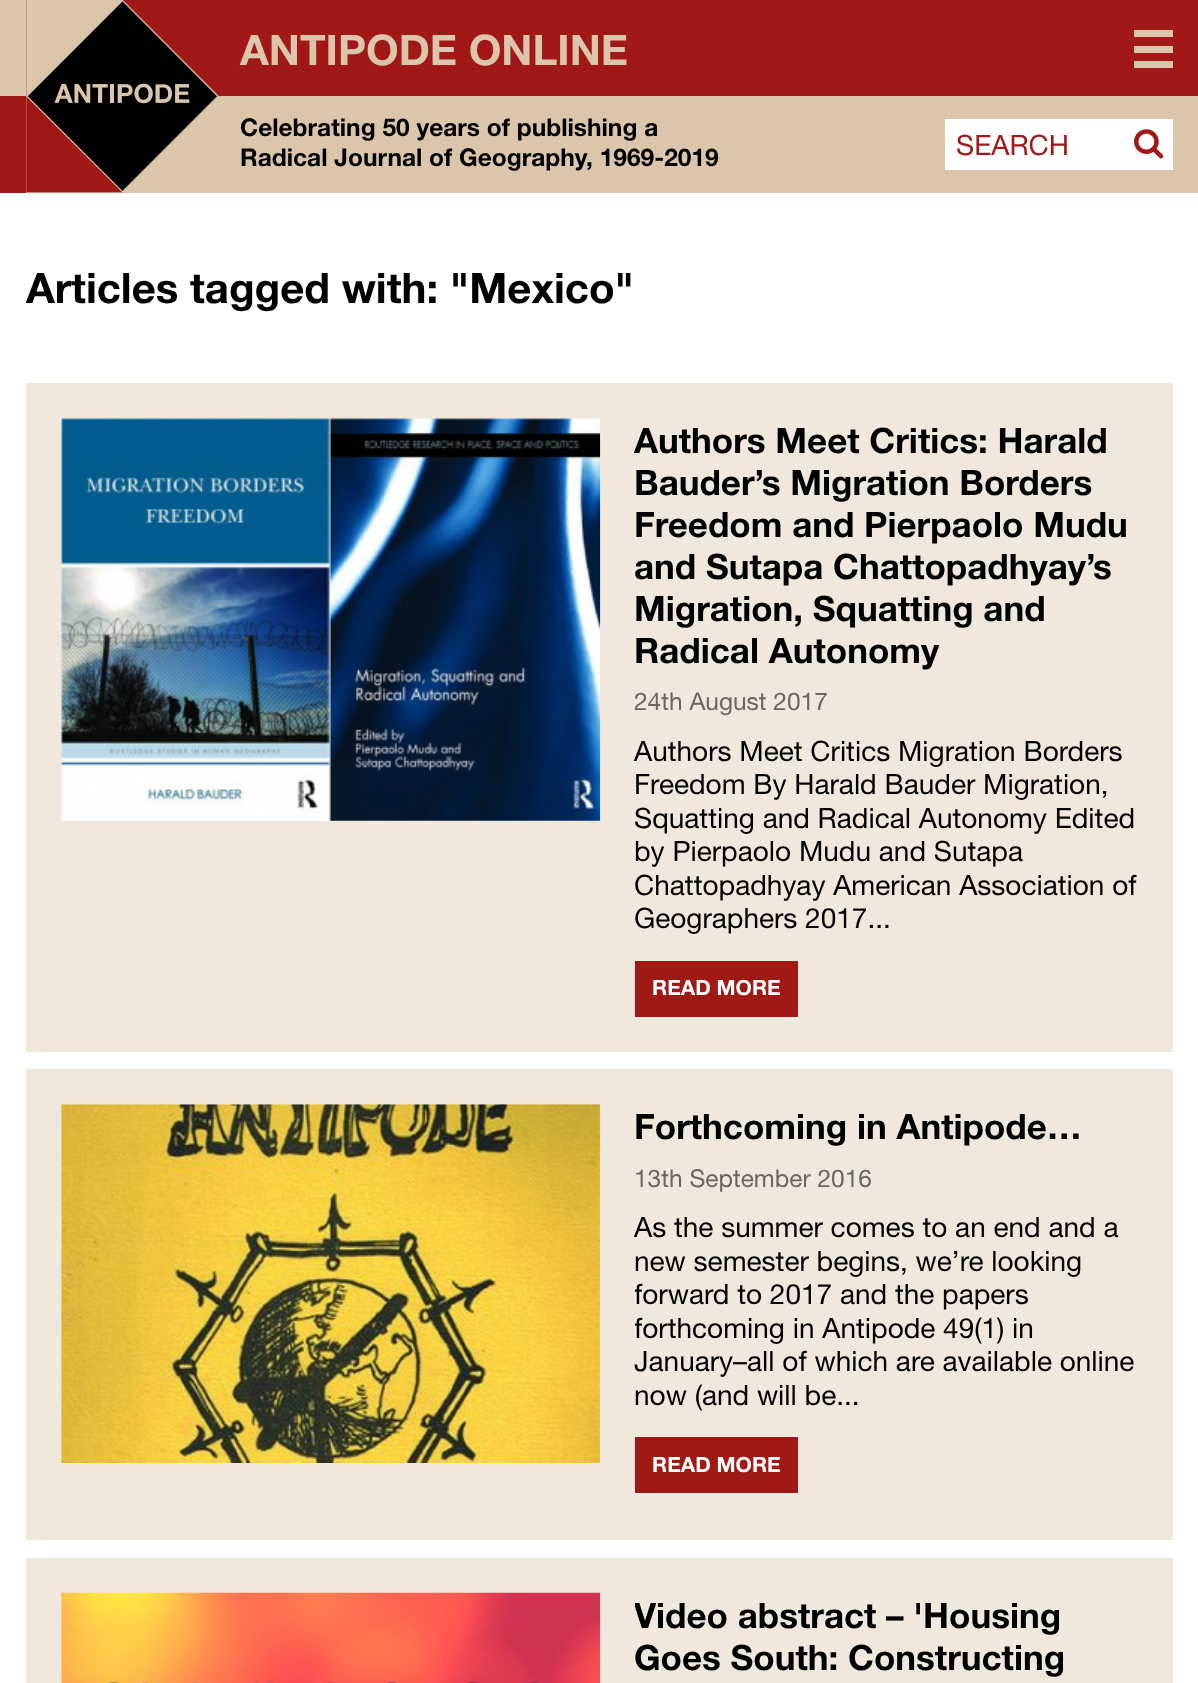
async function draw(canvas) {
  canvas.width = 1198
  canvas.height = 1683
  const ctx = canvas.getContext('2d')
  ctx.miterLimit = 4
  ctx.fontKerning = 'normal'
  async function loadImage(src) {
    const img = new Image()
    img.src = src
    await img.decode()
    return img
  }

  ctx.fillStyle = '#fff'
  ctx.fillRect(0, 0, 1198, 1683)
  ctx.fillStyle = '#dbc5ab'
  ctx.fillRect(0, 0, 26, 96)
  ctx.fillStyle = '#a01916'
  ctx.fillRect(0, 96, 26, 97)
  ctx.fillRect(26, 0, 1172, 96)
  ctx.fillStyle = '#dbc5ab'
  ctx.fillRect(26, 96, 1172, 97)
  ctx.drawImage(await loadImage('image0.png'), 26, 0, 193, 193)
  ctx.font = 'bold 42px Helvetica Neue'
  ctx.fillText('ANTIPODE ONLINE', 240, 65)
  ctx.font = 'bold 24.5px Helvetica Neue'
  ctx.fillStyle = '#000'
  ctx.fillText('Celebrating 50 years of publishing a', 240, 136)
  ctx.fillText('Radical Journal of Geography, 1969-2019', 240, 166)
  ctx.fillStyle = '#fff'
  ctx.fillRect(945, 119, 228, 51)
  ctx.font = '28px Helvetica Neue'
  ctx.fillStyle = '#a01916'
  ctx.fillText('SEARCH', 956, 155)
  ctx.drawImage(await loadImage('image1.png'), 1134, 129, 30, 30)
  ctx.fillStyle = '#dbc5ab'
  ctx.fillRect(1134, 46, 39, 7)
  ctx.fillRect(1134, 30, 39, 7)
  ctx.fillRect(1134, 61, 39, 7)
  ctx.font = 'bold 42px Helvetica Neue'
  ctx.fillStyle = '#000'
  ctx.fillText('Articles tagged with: "Mexico"', 26, 303)
  ctx.fillStyle = '#f1e8dd'
  ctx.fillRect(26, 383, 1147, 669)
  ctx.drawImage(await loadImage('image2.png'), 61, 418, 540, 403)
  ctx.font = 'bold 35px Helvetica Neue'
  ctx.fillStyle = '#000'
  ctx.fillText('Authors Meet Critics: Harald', 634, 453)
  ctx.fillText('Bauder’s Migration Borders', 634, 495)
  ctx.fillText('Freedom and Pierpaolo Mudu', 634, 537)
  ctx.fillText('and Sutapa Chattopadhyay’s', 634, 579)
  ctx.fillText('Migration, Squatting and', 634, 621)
  ctx.fillText('Radical Autonomy', 634, 663)
  ctx.font = '24.5px Helvetica Neue'
  ctx.fillStyle = '#686861'
  ctx.fillText('24th August 2017', 634, 710)
  ctx.font = '28px Helvetica Neue'
  ctx.fillStyle = '#000'
  ctx.fillText('Authors Meet Critics Migration Borders', 634, 761)
  ctx.fillText('Freedom By Harald Bauder Migration,', 634, 794)
  ctx.fillText('Squatting and Radical Autonomy Edited', 634, 828)
  ctx.fillText('by Pierpaolo Mudu and Sutapa', 634, 861)
  ctx.fillText('Chattopadhyay American Association of', 634, 895)
  ctx.fillText('Geographers 2017...', 634, 928)
  ctx.fillStyle = '#9f1915'
  ctx.fillRect(635, 961, 163, 56)
  ctx.font = 'bold 21px Helvetica Neue'
  ctx.fillStyle = '#fff'
  ctx.fillText('READ MORE', 652, 995)
  ctx.fillStyle = '#f1e8dd'
  ctx.fillRect(26, 1069, 1147, 471)
  ctx.drawImage(await loadImage('image3.png'), 61, 1104, 540, 359)
  ctx.font = 'bold 35px Helvetica Neue'
  ctx.fillStyle = '#000'
  ctx.fillText('Forthcoming in Antipode…', 634, 1139)
  ctx.font = '24.5px Helvetica Neue'
  ctx.fillStyle = '#686861'
  ctx.fillText('13th September 2016', 634, 1187)
  ctx.font = '28px Helvetica Neue'
  ctx.fillStyle = '#000'
  ctx.fillText('As the summer comes to an end and a', 634, 1237)
  ctx.fillText('new semester begins, we’re looking', 634, 1271)
  ctx.save()
  ctx.beginPath()
  ctx.rect(635, 1104, 503, 389)
  ctx.clip()
  ctx.fillText('forward to 2017 and the papers', 634, 1304)
  ctx.fillText('forthcoming in Antipode 49(1) in', 634, 1338)
  ctx.restore()
  ctx.fillText('January–all of which are available online', 634, 1371)
  ctx.fillText('now (and will be...', 634, 1405)
  ctx.fillStyle = '#9f1915'
  ctx.fillRect(635, 1437, 163, 56)
  ctx.font = 'bold 21px Helvetica Neue'
  ctx.fillStyle = '#fff'
  ctx.fillText('READ MORE', 652, 1472)
  ctx.fillStyle = '#f1e8dd'
  ctx.fillRect(26, 1558, 1147, 125)
  ctx.drawImage(await loadImage('image4.png'), 61, 1592, 540, 91)
  ctx.save()
  ctx.beginPath()
  ctx.rect(635, 1593, 503, 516)
  ctx.clip()
  ctx.font = 'bold 35px Helvetica Neue'
  ctx.fillStyle = '#000'
  ctx.fillText('Video abstract – \'Housing', 634, 1628)
  ctx.restore()
  ctx.font = 'bold 35px Helvetica Neue'
  ctx.fillStyle = '#000'
  ctx.fillText('Goes South: Constructing', 634, 1670)
}

draw(document.querySelector('canvas'))
